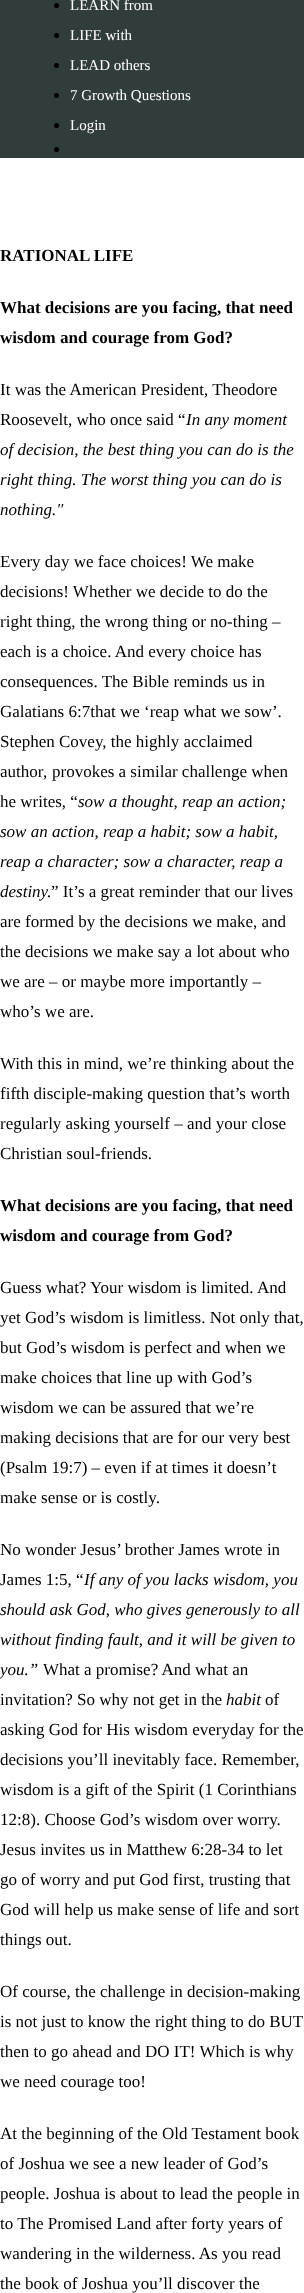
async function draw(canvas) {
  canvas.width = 304
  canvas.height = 2293
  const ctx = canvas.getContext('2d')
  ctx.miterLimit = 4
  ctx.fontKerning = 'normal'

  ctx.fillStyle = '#fff'
  ctx.fillRect(0, 0, 304, 2293)
  ctx.fillStyle = '#313c3c'
  ctx.fillRect(0, 0, 304, 158)
  ctx.fillStyle = '#000'
  ctx.beginPath()
  ctx.arc(56.5, 5.5, 2.5, 0, 2 * Math.PI)
  ctx.fill()
  ctx.font = '15px Liberation Serif'
  ctx.fillStyle = '#fff'
  ctx.fillText('LEARN from', 70, 10)
  ctx.fillStyle = '#000'
  ctx.beginPath()
  ctx.arc(56.5, 35.5, 2.5, 0, 2 * Math.PI)
  ctx.fill()
  ctx.fillStyle = '#fff'
  ctx.fillText('LIFE with', 70, 40)
  ctx.fillStyle = '#000'
  ctx.beginPath()
  ctx.arc(56.5, 65.5, 2.5, 0, 2 * Math.PI)
  ctx.fill()
  ctx.fillStyle = '#fff'
  ctx.fillText('LEAD others', 70, 70)
  ctx.fillStyle = '#000'
  ctx.beginPath()
  ctx.arc(56.5, 95.5, 2.5, 0, 2 * Math.PI)
  ctx.fill()
  ctx.fillStyle = '#fff'
  ctx.fillText('7 Growth Questions', 70, 100)
  ctx.fillStyle = '#000'
  ctx.beginPath()
  ctx.arc(56.5, 125.5, 2.5, 0, 2 * Math.PI)
  ctx.fill()
  ctx.fillStyle = '#fff'
  ctx.fillText('Login', 70, 130)
  ctx.fillStyle = '#000'
  ctx.beginPath()
  ctx.arc(56.5, 149.5, 2.5, 0, 2 * Math.PI)
  ctx.fill()
  ctx.font = 'bold 17px Liberation Serif'
  ctx.fillText('RATIONAL LIFE', 0, 261)
  ctx.fillText('What decisions are you facing, that need', 0, 313)
  ctx.fillText('wisdom and courage from God?', 0, 343)
  ctx.font = '17px Liberation Serif'
  ctx.fillText('It was the American President, Theodore', 0, 395)
  ctx.fillText('Roosevelt, who once said “', 0, 425)
  ctx.font = 'italic 17px Liberation Serif'
  ctx.fillText('In any moment', 186, 425)
  ctx.fillText('of decision, the best thing you can do is the', 0, 455)
  ctx.fillText('right thing. The worst thing you can do is', 0, 485)
  ctx.fillText('nothing."', 0, 515)
  ctx.font = '17px Liberation Serif'
  ctx.fillText('Every day we face choices! We make', 0, 567)
  ctx.fillText('decisions! Whether we decide to do the', 0, 597)
  ctx.fillText('right thing, the wrong thing or no-thing –', 0, 627)
  ctx.fillText('each is a choice. And every choice has', 0, 657)
  ctx.fillText('consequences. The Bible reminds us in', 0, 687)
  ctx.fillText('Galatians 6:7that we ‘reap what we sow’.', 0, 717)
  ctx.fillText('Stephen Covey, the highly acclaimed', 0, 747)
  ctx.fillText('author', 0, 777)
  ctx.font = 'italic 17px Liberation Serif'
  ctx.fillText(',', 43, 777)
  ctx.font = '17px Liberation Serif'
  ctx.fillText('provokes a similar challenge when', 52, 777)
  ctx.fillText('he writes, “', 0, 807)
  ctx.font = 'italic 17px Liberation Serif'
  ctx.fillText('sow a thought, reap an action;', 78, 807)
  ctx.fillText('sow an action, reap a habit; sow a habit,', 0, 837)
  ctx.fillText('reap a character; sow a character, reap a', 0, 867)
  ctx.fillText('destiny.', 0, 897)
  ctx.font = '17px Liberation Serif'
  ctx.fillText('” It’s a great reminder that our lives', 51, 897)
  ctx.fillText('are formed by the decisions we make, and', 0, 927)
  ctx.fillText('the decisions we make say a lot about who', 0, 957)
  ctx.fillText('we are – or maybe more importantly –', 0, 987)
  ctx.fillText('who’s we are.', 0, 1017)
  ctx.fillText('With this in mind, we’re thinking about the', 0, 1069)
  ctx.fillText('fifth disciple-making question that’s worth', 0, 1099)
  ctx.fillText('regularly asking yourself – and your close', 0, 1129)
  ctx.fillText('Christian soul-friends.', 0, 1159)
  ctx.font = 'bold 17px Liberation Serif'
  ctx.fillText('What decisions are you facing, that need', 0, 1211)
  ctx.fillText('wisdom and courage from God?', 0, 1241)
  ctx.font = '17px Liberation Serif'
  ctx.fillText('Guess what? Your wisdom is limited. And', 0, 1293)
  ctx.fillText('yet God’s wisdom is limitless. Not only that,', 0, 1323)
  ctx.fillText('but God’s wisdom is perfect and when we', 0, 1353)
  ctx.fillText('make choices that line up with God’s', 0, 1383)
  ctx.fillText('wisdom we can be assured that we’re', 0, 1413)
  ctx.fillText('making decisions that are for our very best', 0, 1443)
  ctx.fillText('(Psalm 19:7) – even if at times it doesn’t', 0, 1473)
  ctx.fillText('make sense or is costly.', 0, 1503)
  ctx.fillText('No wonder Jesus’ brother James wrote in', 0, 1555)
  ctx.fillText('James 1:5, “', 0, 1585)
  ctx.font = 'italic 17px Liberation Serif'
  ctx.fillText('If any of you lacks wisdom, you', 84, 1585)
  ctx.fillText('should ask God, who gives generously to all', 0, 1615)
  ctx.fillText('without finding fault, and it will be given to', 0, 1645)
  ctx.fillText('you.”', 0, 1675)
  ctx.font = '17px Liberation Serif'
  ctx.fillText('What a promise? And what an', 43, 1675)
  ctx.fillText('invitation? So why not get in the', 0, 1705)
  ctx.font = 'italic 17px Liberation Serif'
  ctx.fillText('habit', 226, 1705)
  ctx.font = '17px Liberation Serif'
  ctx.fillText('of', 265, 1705)
  ctx.fillText('asking God for His wisdom everyday for the', 0, 1735)
  ctx.fillText('decisions you’ll inevitably face. Remember,', 0, 1765)
  ctx.fillText('wisdom is a gift of the Spirit (1 Corinthians', 0, 1795)
  ctx.fillText('12:8). Choose God’s wisdom over worry.', 0, 1825)
  ctx.fillText('Jesus invites us in Matthew 6:28-34 to let', 0, 1855)
  ctx.fillText('go of worry and put God first, trusting that', 0, 1885)
  ctx.fillText('God will help us make sense of life and sort', 0, 1915)
  ctx.fillText('things out.', 0, 1945)
  ctx.fillText('Of course, the challenge in decision-making', 0, 1997)
  ctx.fillText('is not just to know the right thing to do BUT', 0, 2027)
  ctx.fillText('then to go ahead and DO IT! Which is why', 0, 2057)
  ctx.fillText('we need courage too!', 0, 2087)
  ctx.fillText('At the beginning of the Old Testament book', 0, 2139)
  ctx.fillText('of Joshua we see a new leader of God’s', 0, 2169)
  ctx.fillText('people. Joshua is about to lead the people in', 0, 2199)
  ctx.fillText('to The Promised Land after forty years of', 0, 2229)
  ctx.fillText('wandering in the wilderness. As you read', 0, 2259)
  ctx.fillText('the book of Joshua you’ll discover the', 0, 2289)
}

draw(document.querySelector('canvas'))
